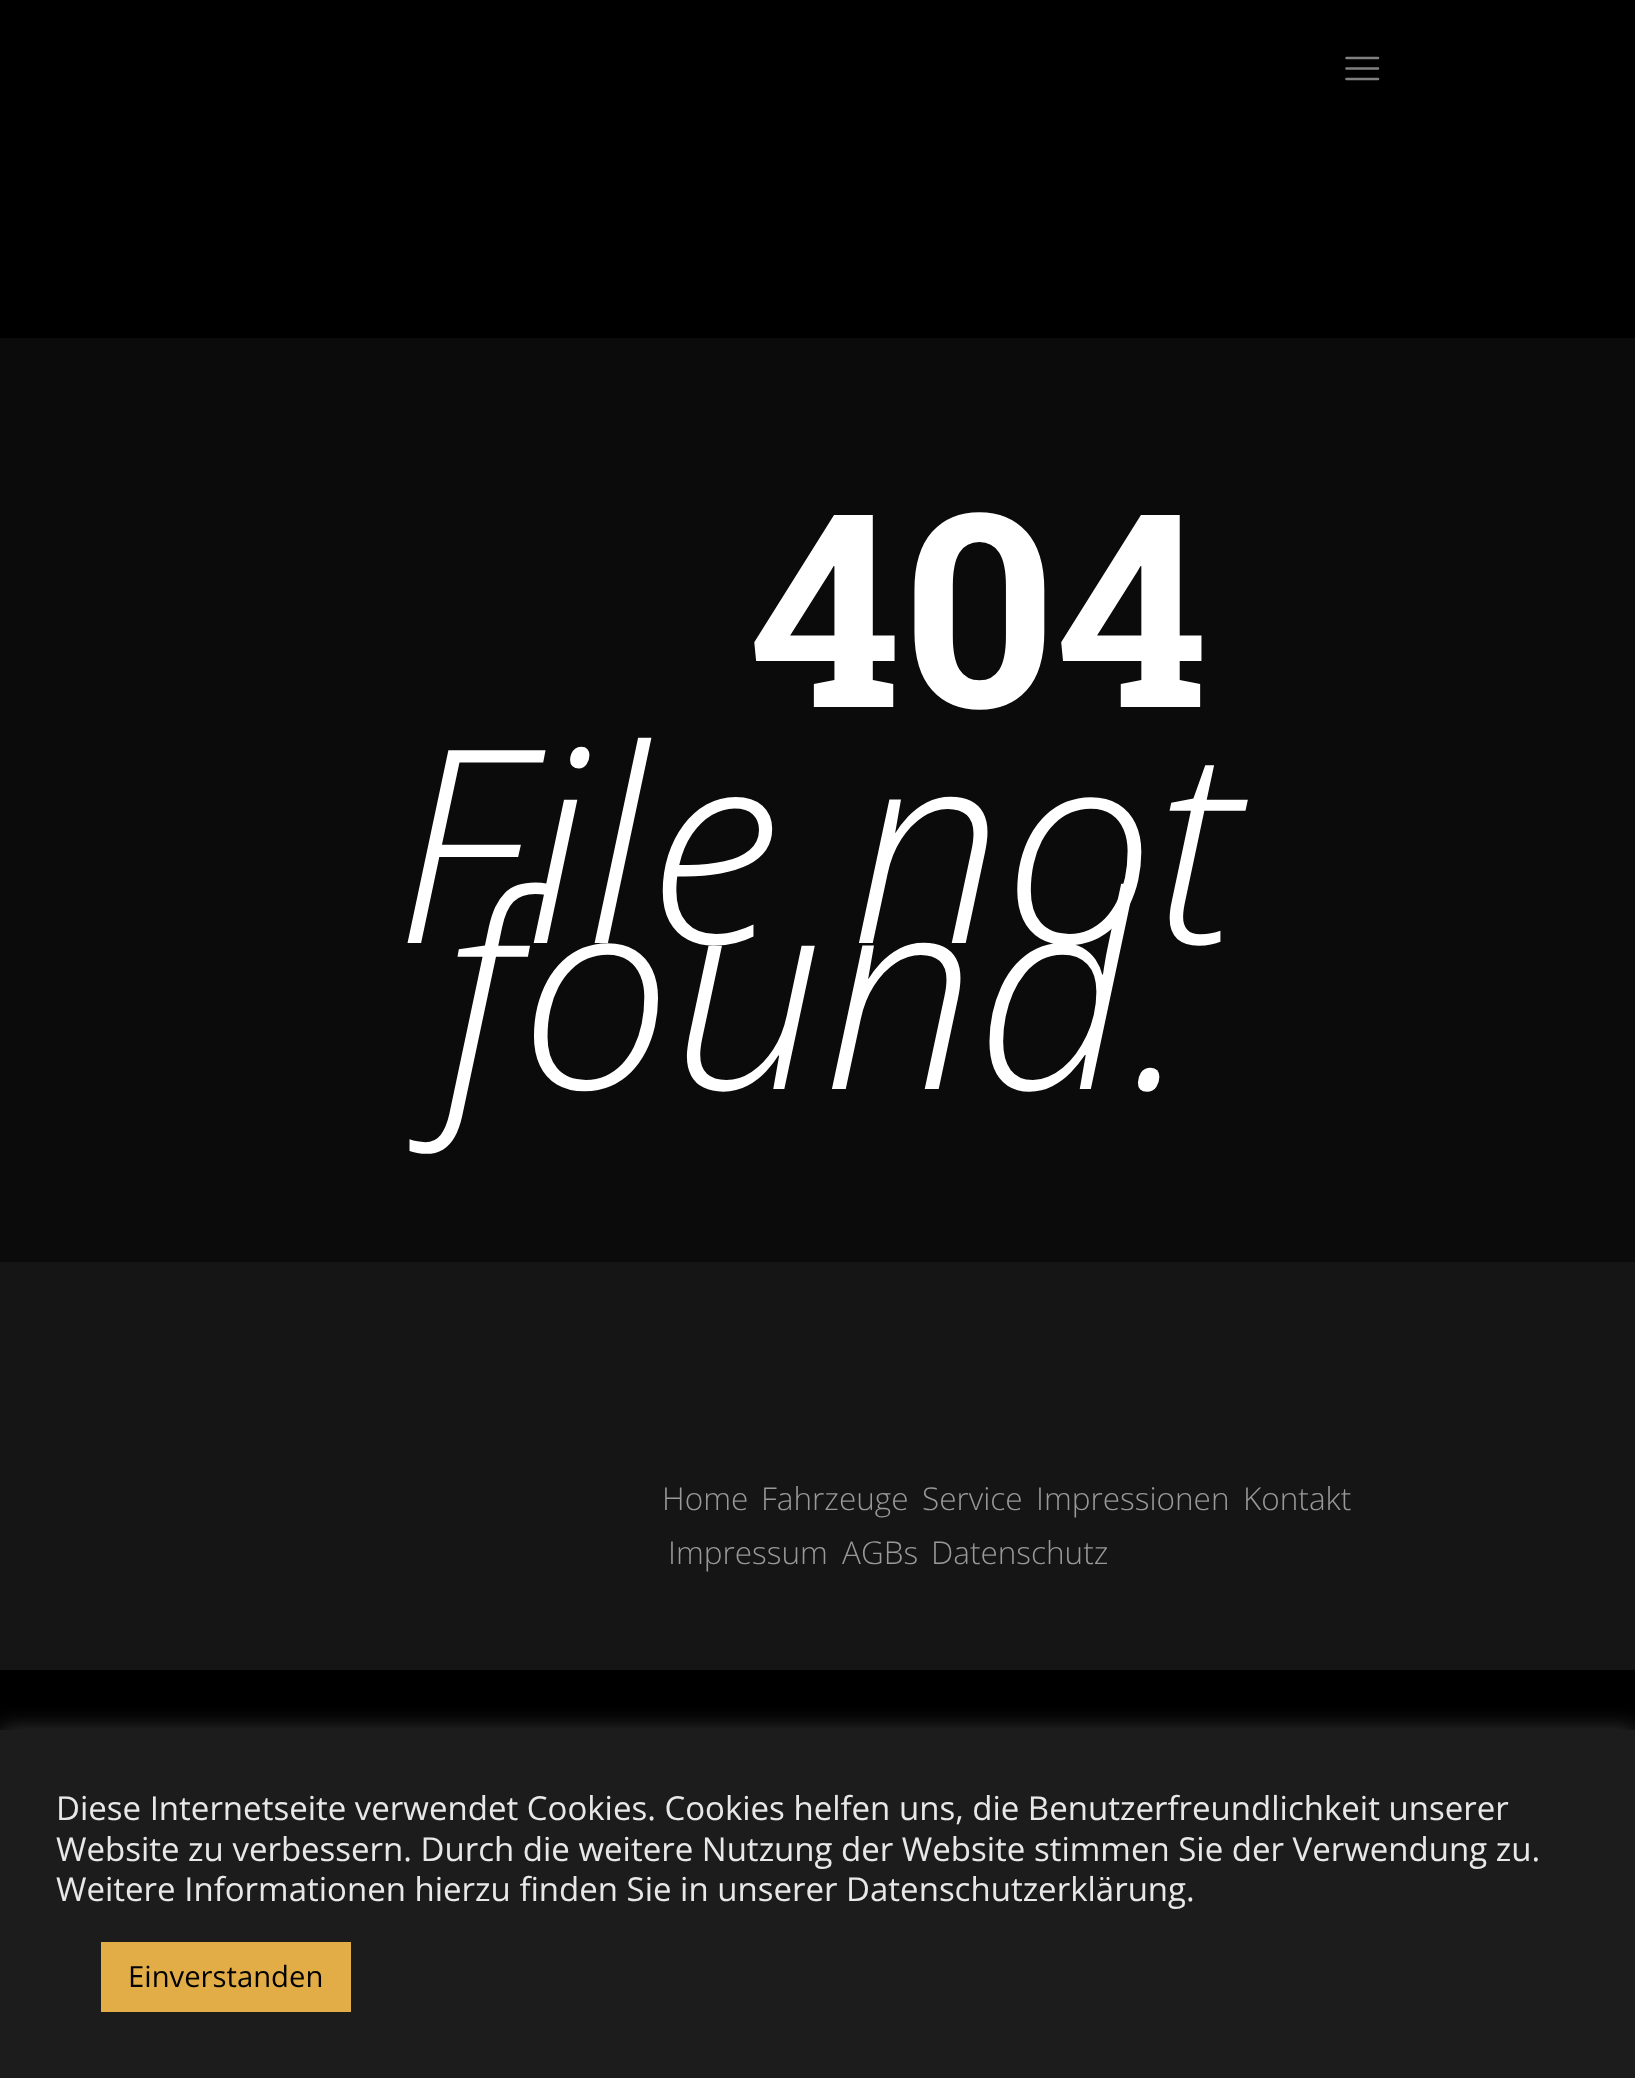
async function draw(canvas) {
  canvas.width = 1635
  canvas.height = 2078
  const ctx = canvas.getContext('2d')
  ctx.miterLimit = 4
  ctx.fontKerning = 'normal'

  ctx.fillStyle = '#000'
  ctx.fillRect(0, 0, 1635, 2078)
  ctx.beginPath()
  ctx.moveTo(1346.5, 58)
  ctx.lineTo(1378, 58)
  ctx.moveTo(1346.5, 68.5)
  ctx.lineTo(1378, 68.5)
  ctx.moveTo(1346.5, 79)
  ctx.lineTo(1378, 79)
  ctx.strokeStyle = '#808080'
  ctx.lineWidth = 2.6
  ctx.lineCap = 'round'
  ctx.stroke()
  ctx.fillStyle = '#0b0b0b'
  ctx.fillRect(0, 338, 1635, 924)
  ctx.font = 'bold 270px Roboto Slab'
  ctx.fillStyle = '#fff'
  ctx.fillText('404', 749, 707)
  ctx.font = 'italic 300 270px Open Sans'
  ctx.fillText('File not', 395, 943)
  ctx.fillText('found.', 443, 1089)
  ctx.fillStyle = '#151515'
  ctx.fillRect(0, 1262, 1635, 408)
  ctx.font = '300 31.5px Open Sans'
  ctx.fillStyle = '#999'
  ctx.fillText('Home', 662, 1510)
  ctx.fillText('Fahrzeuge', 761, 1510)
  ctx.fillText('Service', 922, 1510)
  ctx.fillText('Impressionen', 1036, 1510)
  ctx.fillText('Kontakt', 1243, 1510)
  ctx.fillText('Impressum', 668, 1564)
  ctx.fillText('AGBs', 842, 1564)
  ctx.fillText('Datenschutz', 931, 1564)
  ctx.fillStyle = '#acabab4d'
  ctx.filter = 'blur(11px)'
  ctx.beginPath()
  ctx.rect(0, 1728, 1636, 349)
  ctx.fill()
  ctx.filter = 'none'
  ctx.fillStyle = '#1c1c1c'
  ctx.fillRect(0, 1730, 1635, 348)
  ctx.font = '33px Open Sans'
  ctx.fillStyle = '#e8e8e8'
  ctx.fillText('Diese Internetseite verwendet Cookies. Cookies helfen uns, die Benutzerfreundlichkeit unserer', 56, 1820)
  ctx.fillText('Website zu verbessern. Durch die weitere Nutzung der Website stimmen Sie der Verwendung zu.', 56, 1861)
  ctx.fillText('Weitere Informationen hierzu finden Sie in unserer Datenschutzerklärung.', 56, 1901)
  ctx.fillStyle = '#e2ac47'
  ctx.fillRect(101, 1942, 250, 70)
  ctx.font = '29.25px Open Sans'
  ctx.fillStyle = '#020202'
  ctx.fillText('Einverstanden', 128, 1987)
}

draw(document.querySelector('canvas'))
